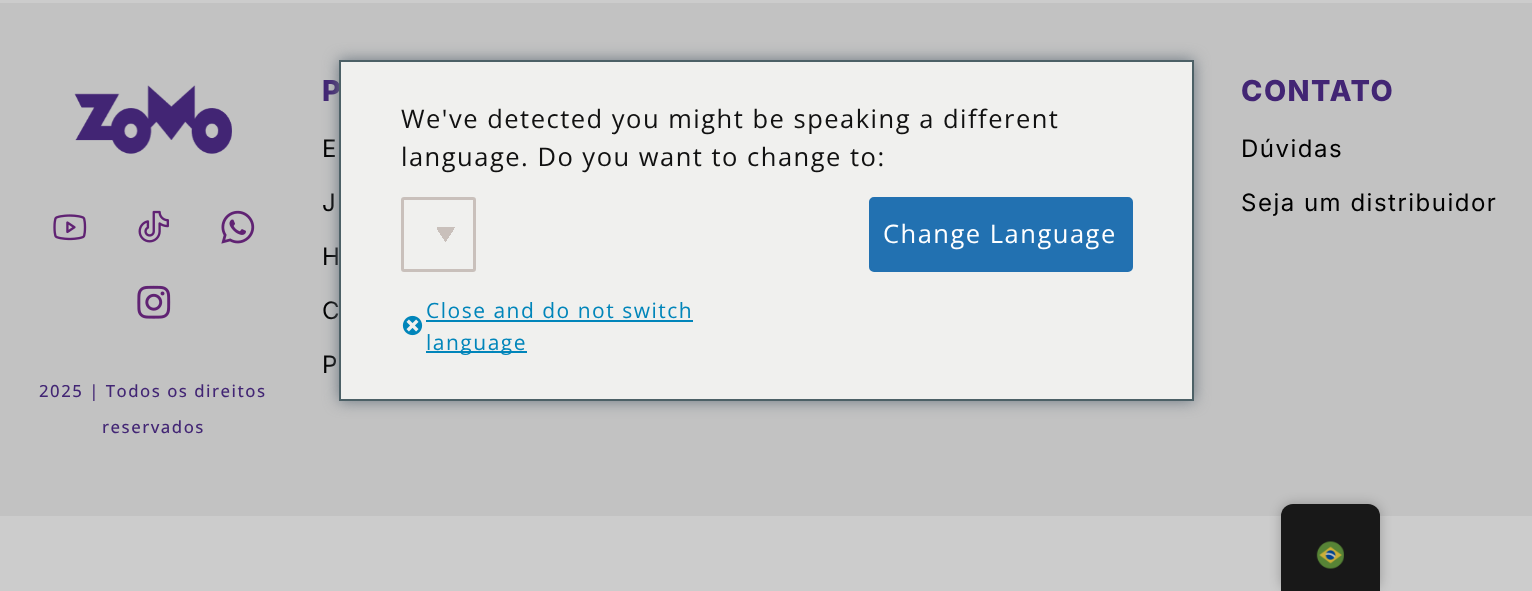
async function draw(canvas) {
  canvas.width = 1532
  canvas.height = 591
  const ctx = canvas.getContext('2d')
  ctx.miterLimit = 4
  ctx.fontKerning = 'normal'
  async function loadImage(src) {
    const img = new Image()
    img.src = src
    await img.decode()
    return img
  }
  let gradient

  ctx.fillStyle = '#ccc'
  ctx.fillRect(0, 0, 1532, 591)
  ctx.fillStyle = '#c2c2c2'
  ctx.fillRect(0, 3, 1532, 513)
  ctx.letterSpacing = '1.5px'
  ctx.font = '800 28.75px Inter'
  ctx.fillStyle = '#422574'
  ctx.fillText('P', 322, 101)
  ctx.font = '24px Inter'
  ctx.fillStyle = '#000'
  ctx.fillText('E', 322, 157)
  ctx.fillText('J', 322, 211)
  ctx.fillText('H', 322, 265)
  ctx.fillText('C', 322, 319)
  ctx.fillText('P', 322, 373)
  ctx.font = '800 28.75px Inter'
  ctx.fillStyle = '#422574'
  ctx.fillText('CONTATO', 1241, 101)
  ctx.font = '24px Inter'
  ctx.fillStyle = '#000'
  ctx.fillText('Dúvidas', 1241, 157)
  ctx.fillText('Seja um distribuidor', 1241, 211)
  ctx.drawImage(await loadImage('image0.png'), 74, 85, 158, 69)
  ctx.drawImage(await loadImage('image1.png'), 53, 214, 34, 27)
  ctx.drawImage(await loadImage('image2.png'), 138, 210, 31, 33)
  ctx.drawImage(await loadImage('image3.png'), 221, 210, 34, 34)
  ctx.drawImage(await loadImage('image4.png'), 137, 285, 34, 34)
  ctx.font = '500 16.75px Open Sans'
  ctx.fillStyle = '#422574'
  ctx.fillText('2025 | Todos os direitos', 39, 397)
  ctx.fillText('reservados', 102, 433)
  ctx.fillStyle = '#6c7781'
  ctx.filter = 'blur(7.5px)'
  ctx.beginPath()
  ctx.rect(339, 60, 855, 341)
  ctx.fill()
  ctx.filter = 'none'
  ctx.fillStyle = '#f0f0ee'
  ctx.beginPath()
  ctx.rect(340, 61, 853, 339)
  ctx.fill()
  ctx.strokeStyle = '#4c6066'
  ctx.lineWidth = 2
  ctx.stroke()
  ctx.font = '25.5px Open Sans'
  ctx.fillStyle = '#111'
  ctx.fillText('We\'ve detected you might be speaking a different', 401, 128)
  ctx.fillText('language. Do you want to change to:', 401, 166)
  gradient = ctx.createLinearGradient(443, 231, 457, 240)
  gradient.addColorStop(0.5, '#c9c0bb')
  gradient.addColorStop(0.5, '#f0f0ee')
  ctx.fillStyle = gradient
  ctx.fillRect(446, 227, 9, 14)
  gradient = ctx.createLinearGradient(434, 240, 448, 231)
  gradient.addColorStop(0.5, '#f0f0ee')
  gradient.addColorStop(0.5, '#c9c0bb')
  ctx.fillStyle = gradient
  ctx.fillRect(437, 227, 9, 15)
  ctx.beginPath()
  ctx.roundRect(402.5, 198.5, 72, 72, 1.5)
  ctx.strokeStyle = '#c9c0bb'
  ctx.lineWidth = 3
  ctx.stroke()
  ctx.fillStyle = '#2271b1'
  ctx.beginPath()
  ctx.roundRect(870, 198, 262, 73, 4)
  ctx.fill()
  ctx.strokeStyle = '#2271b1'
  ctx.lineWidth = 2
  ctx.stroke()
  ctx.fillStyle = '#fff'
  ctx.fillText('Change Language', 883, 243)
  ctx.drawImage(await loadImage('image5.png'), 402, 315, 21, 21)
  ctx.font = '21px Open Sans'
  ctx.fillStyle = '#0085ba'
  ctx.fillText('Close and do not switch', 426, 318)
  ctx.fillRect(426, 320, 267, 2)
  ctx.fillRect(426, 351, 101, 2)
  ctx.fillText('language', 426, 350)
  ctx.fillStyle = '#00000040'
  ctx.filter = 'blur(6px)'
  ctx.beginPath()
  ctx.roundRect(1281, 504, 99, 87, 12)
  ctx.fill()
  ctx.filter = 'none'
  ctx.fillStyle = '#181818'
  ctx.beginPath()
  ctx.roundRect(1281, 504, 99, 87, [12, 12, 0, 0])
  ctx.fill()
  ctx.drawImage(await loadImage('image6.png'), 1316, 541, 28, 28)
}

draw(document.querySelector('canvas'))
